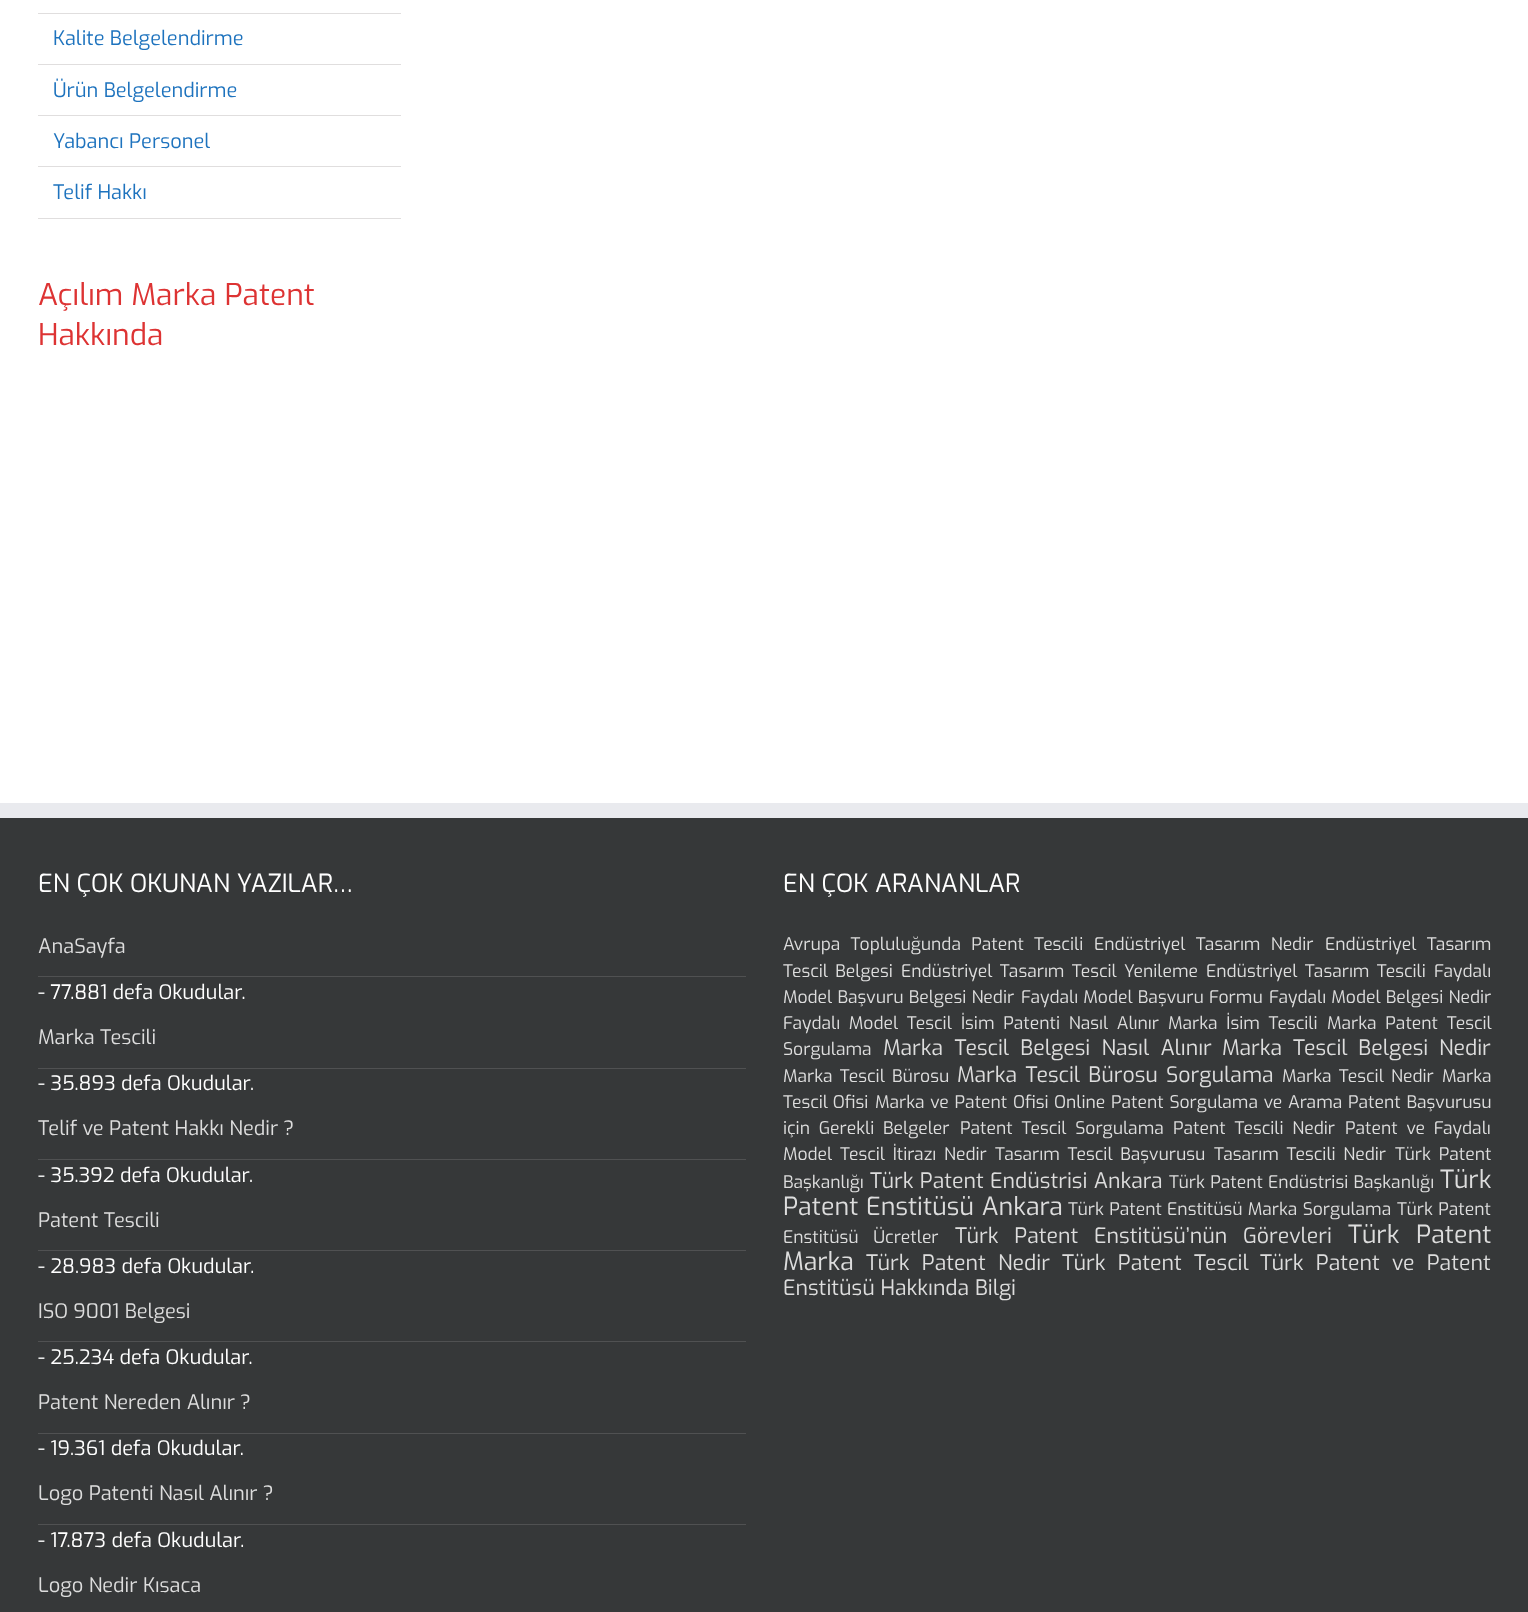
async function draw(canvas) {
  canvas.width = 1528
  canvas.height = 1612
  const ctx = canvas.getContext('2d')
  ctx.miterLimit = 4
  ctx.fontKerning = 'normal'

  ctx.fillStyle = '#fff'
  ctx.fillRect(0, 0, 1528, 1612)
  ctx.fillStyle = '#e0dede'
  ctx.fillRect(38, 13, 363, 1)
  ctx.fillRect(38, 64, 363, 1)
  ctx.font = '20px Exo'
  ctx.fillStyle = '#1e73be'
  ctx.fillText('Kalite Belgelendirme', 53, 45)
  ctx.fillStyle = '#e0dede'
  ctx.fillRect(38, 115, 363, 1)
  ctx.fillStyle = '#1e73be'
  ctx.fillText('Ürün Belgelendirme', 53, 97)
  ctx.fillStyle = '#e0dede'
  ctx.fillRect(38, 166, 363, 1)
  ctx.fillStyle = '#1e73be'
  ctx.fillText('Yabancı Personel', 53, 148)
  ctx.fillStyle = '#e0dede'
  ctx.fillRect(38, 218, 363, 1)
  ctx.fillStyle = '#1e73be'
  ctx.fillText('Telif Hakkı', 53, 199)
  ctx.font = '30px Exo'
  ctx.fillStyle = '#d33'
  ctx.fillText('Açılım Marka Patent', 38, 305)
  ctx.fillText('Hakkında', 38, 345)
  ctx.fillStyle = '#363839'
  ctx.fillRect(0, 818, 1528, 794)
  ctx.fillStyle = '#e9eaee'
  ctx.fillRect(0, 803, 1528, 15)
  ctx.font = '25px Exo'
  ctx.fillStyle = '#fff'
  ctx.fillText('EN ÇOK OKUNAN YAZILAR…', 38, 892)
  ctx.fillStyle = '#505152'
  ctx.fillRect(38, 976, 708, 1)
  ctx.font = '20px Exo'
  ctx.fillStyle = '#ddd'
  ctx.fillText('AnaSayfa', 38, 953)
  ctx.fillStyle = '#fff'
  ctx.fillText('- 77.881 defa Okudular.', 38, 999)
  ctx.fillStyle = '#505152'
  ctx.fillRect(38, 1068, 708, 1)
  ctx.fillStyle = '#ddd'
  ctx.fillText('Marka Tescili', 38, 1044)
  ctx.fillStyle = '#fff'
  ctx.fillText('- 35.893 defa Okudular.', 38, 1090)
  ctx.fillStyle = '#505152'
  ctx.fillRect(38, 1159, 708, 1)
  ctx.fillStyle = '#ddd'
  ctx.fillText('Telif ve Patent Hakkı Nedir ?', 38, 1135)
  ctx.fillStyle = '#fff'
  ctx.fillText('- 35.392 defa Okudular.', 38, 1182)
  ctx.fillStyle = '#505152'
  ctx.fillRect(38, 1250, 708, 1)
  ctx.fillStyle = '#ddd'
  ctx.fillText('Patent Tescili', 38, 1227)
  ctx.fillStyle = '#fff'
  ctx.fillText('- 28.983 defa Okudular.', 38, 1273)
  ctx.fillStyle = '#505152'
  ctx.fillRect(38, 1341, 708, 1)
  ctx.fillStyle = '#ddd'
  ctx.fillText('ISO 9001 Belgesi', 38, 1318)
  ctx.fillStyle = '#fff'
  ctx.fillText('- 25.234 defa Okudular.', 38, 1364)
  ctx.fillStyle = '#505152'
  ctx.fillRect(38, 1433, 708, 1)
  ctx.fillStyle = '#ddd'
  ctx.fillText('Patent Nereden Alınır ?', 38, 1409)
  ctx.fillStyle = '#fff'
  ctx.fillText('- 19.361 defa Okudular.', 38, 1455)
  ctx.fillStyle = '#505152'
  ctx.fillRect(38, 1524, 708, 1)
  ctx.fillStyle = '#ddd'
  ctx.fillText('Logo Patenti Nasıl Alınır ?', 38, 1500)
  ctx.fillStyle = '#fff'
  ctx.fillText('- 17.873 defa Okudular.', 38, 1547)
  ctx.fillStyle = '#ddd'
  ctx.fillText('Logo Nedir Kısaca', 38, 1592)
  ctx.font = '25px Exo'
  ctx.fillStyle = '#fff'
  ctx.fillText('EN ÇOK ARANANLAR', 783, 892)
  ctx.wordSpacing = '5.5px'
  ctx.font = '17.5px Exo'
  ctx.fillStyle = '#ddd'
  ctx.fillText('Avrupa Topluluğunda Patent Tescili', 783, 950)
  ctx.fillText('Endüstriyel Tasarım Nedir', 1094, 950)
  ctx.fillText('Endüstriyel Tasarım', 1325, 950)
  ctx.wordSpacing = '2.5px'
  ctx.fillText('Tescil Belgesi', 783, 977)
  ctx.fillText('Endüstriyel Tasarım Tescil Yenileme', 901, 977)
  ctx.fillText('Endüstriyel Tasarım Tescili', 1206, 977)
  ctx.wordSpacing = '0px'
  ctx.fillText('Faydalı', 1434, 977)
  ctx.wordSpacing = '0.5px'
  ctx.fillText('Model Başvuru Belgesi Nedir', 783, 1003)
  ctx.fillText('Faydalı Model Başvuru Formu', 1021, 1003)
  ctx.fillText('Faydalı Model Belgesi Nedir', 1269, 1003)
  ctx.wordSpacing = '4px'
  ctx.fillText('Faydalı Model Tescil', 783, 1029)
  ctx.fillText('İsim Patenti Nasıl Alınır', 961, 1029)
  ctx.fillText('Marka İsim Tescili', 1168, 1029)
  ctx.fillText('Marka Patent Tescil', 1327, 1029)
  ctx.wordSpacing = '0px'
  ctx.fillText('Sorgulama', 783, 1055)
  ctx.wordSpacing = '5.5px'
  ctx.font = '21.25px Exo'
  ctx.fillText('Marka Tescil Belgesi Nasıl Alınır', 883, 1055)
  ctx.wordSpacing = '5px'
  ctx.fillText('Marka Tescil Belgesi Nedir', 1222, 1055)
  ctx.wordSpacing = '2.5px'
  ctx.font = '17.5px Exo'
  ctx.fillText('Marka Tescil Bürosu', 783, 1082)
  ctx.font = '21.25px Exo'
  ctx.fillText('Marka Tescil Bürosu Sorgulama', 957, 1082)
  ctx.font = '17.5px Exo'
  ctx.fillText('Marka Tescil Nedir', 1282, 1082)
  ctx.wordSpacing = '0px'
  ctx.fillText('Marka', 1442, 1082)
  ctx.fillText('Tescil Ofisi', 783, 1108)
  ctx.wordSpacing = '1px'
  ctx.fillText('Marka ve Patent Ofisi', 875, 1108)
  ctx.fillText('Online Patent Sorgulama ve Arama', 1054, 1108)
  ctx.fillText('Patent Başvurusu', 1348, 1108)
  ctx.wordSpacing = '4px'
  ctx.fillText('için Gerekli Belgeler', 783, 1134)
  ctx.fillText('Patent Tescil Sorgulama', 960, 1134)
  ctx.fillText('Patent Tescili Nedir', 1173, 1134)
  ctx.fillText('Patent ve Faydalı', 1345, 1134)
  ctx.wordSpacing = '3px'
  ctx.fillText('Model Tescil İtirazı Nedir', 783, 1160)
  ctx.fillText('Tasarım Tescil Başvurusu', 995, 1160)
  ctx.fillText('Tasarım Tescili Nedir', 1214, 1160)
  ctx.fillText('Türk Patent', 1395, 1160)
  ctx.wordSpacing = '0px'
  ctx.fillText('Başkanlığı', 783, 1188)
  ctx.wordSpacing = '0.5px'
  ctx.font = '21.25px Exo'
  ctx.fillText('Türk Patent Endüstrisi Ankara', 870, 1188)
  ctx.font = '17.5px Exo'
  ctx.fillText('Türk Patent Endüstrisi Başkanlığı', 1169, 1188)
  ctx.wordSpacing = '0px'
  ctx.font = '25px Exo'
  ctx.fillText('Türk', 1440, 1188)
  ctx.wordSpacing = '1px'
  ctx.fillText('Patent Enstitüsü Ankara', 783, 1215)
  ctx.wordSpacing = '0.5px'
  ctx.font = '17.5px Exo'
  ctx.fillText('Türk Patent Enstitüsü Marka Sorgulama', 1068, 1215)
  ctx.fillText('Türk Patent', 1397, 1215)
  ctx.wordSpacing = '10px'
  ctx.fillText('Enstitüsü Ücretler', 783, 1243)
  ctx.font = '21.25px Exo'
  ctx.fillText('Türk Patent Enstitüsü’nün Görevleri', 955, 1243)
  ctx.font = '25px Exo'
  ctx.fillText('Türk Patent', 1348, 1243)
  ctx.wordSpacing = '0px'
  ctx.fillText('Marka', 783, 1270)
  ctx.wordSpacing = '6.5px'
  ctx.font = '21.25px Exo'
  ctx.fillText('Türk Patent Nedir', 866, 1270)
  ctx.fillText('Türk Patent Tescil', 1062, 1270)
  ctx.fillText('Türk Patent ve Patent', 1260, 1270)
  ctx.wordSpacing = '0px'
  ctx.fillText('Enstitüsü Hakkında Bilgi', 783, 1295)
}

draw(document.querySelector('canvas'))
